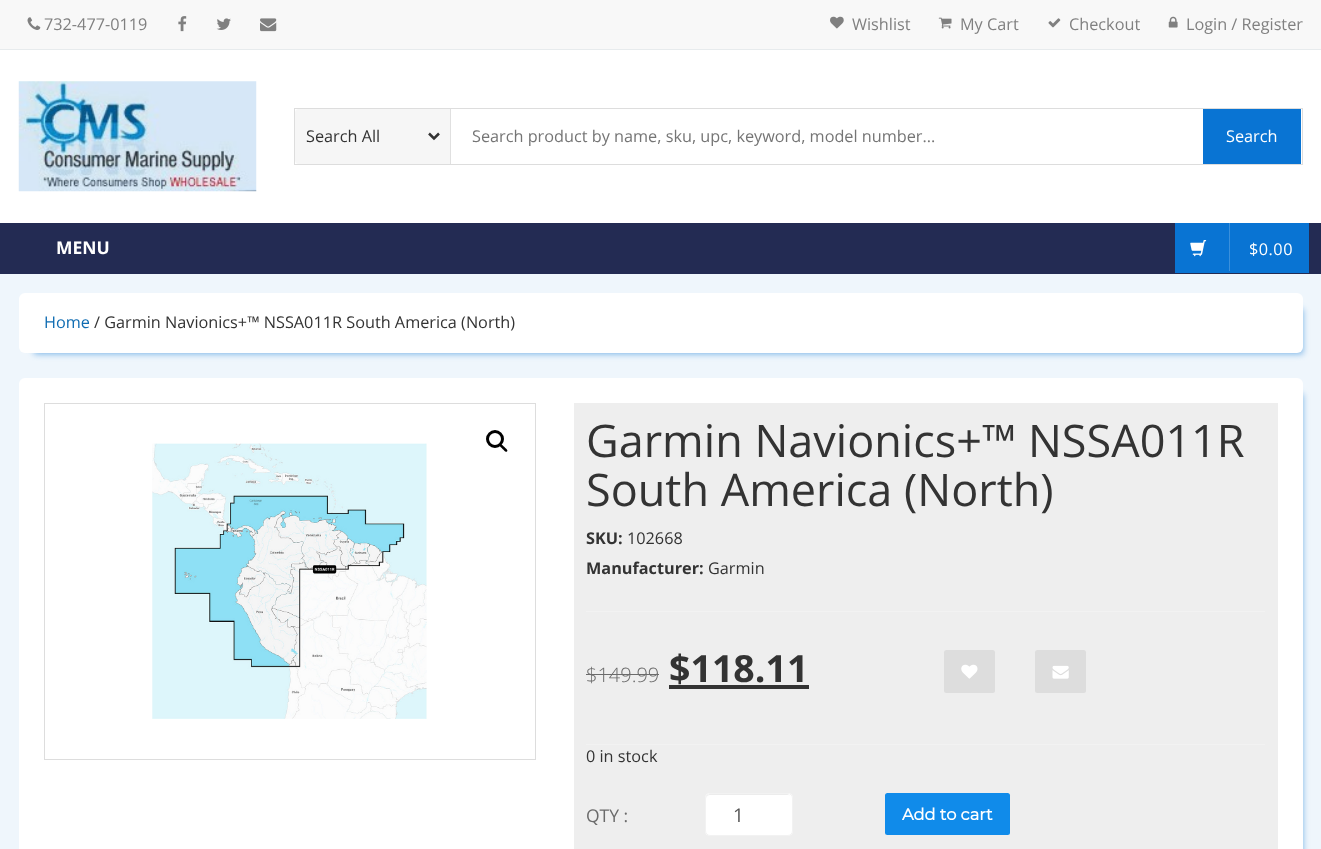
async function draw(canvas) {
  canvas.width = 1321
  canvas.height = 849
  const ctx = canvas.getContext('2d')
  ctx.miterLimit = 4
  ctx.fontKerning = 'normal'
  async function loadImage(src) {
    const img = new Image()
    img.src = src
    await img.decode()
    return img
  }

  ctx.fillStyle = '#eff6fc'
  ctx.fillRect(0, 0, 1321, 849)
  ctx.fillStyle = '#f8f8f8'
  ctx.fillRect(0, 0, 1321, 49)
  ctx.fillStyle = '#e7ebed'
  ctx.fillRect(0, 49, 1321, 1)
  ctx.drawImage(await loadImage('image0.png'), 27, 17, 14, 13)
  ctx.font = '16.25px Open Sans'
  ctx.fillStyle = '#808080'
  ctx.fillText('732-477-0119', 44, 30)
  ctx.drawImage(await loadImage('image1.png'), 178, 16, 9, 16)
  ctx.drawImage(await loadImage('image2.png'), 216, 18, 15, 12)
  ctx.drawImage(await loadImage('image3.png'), 260, 18, 17, 14)
  ctx.drawImage(await loadImage('image4.png'), 830, 16, 14, 13)
  ctx.fillText('Wishlist', 852, 30)
  ctx.drawImage(await loadImage('image5.png'), 938, 17, 14, 12)
  ctx.fillText('My Cart', 960, 30)
  ctx.drawImage(await loadImage('image6.png'), 1048, 18, 13, 10)
  ctx.fillText('Checkout', 1069, 30)
  ctx.drawImage(await loadImage('image7.png'), 1168, 16, 10, 12)
  ctx.fillText('Login / Register', 1186, 30)
  ctx.fillStyle = '#232b53'
  ctx.fillRect(0, 223, 1321, 51)
  ctx.font = 'bold 17.5px Open Sans'
  ctx.fillStyle = '#fff'
  ctx.fillText('MENU', 56, 254)
  ctx.fillRect(0, 50, 1321, 173)
  ctx.drawImage(await loadImage('image8.png'), 18, 81, 239, 111)
  ctx.strokeStyle = '#ddd'
  ctx.strokeRect(294.5, 108.5, 1008, 56)
  ctx.fillStyle = '#f6f6f6'
  ctx.beginPath()
  ctx.roundRect(295, 109, 156, 55, [4, 0, 0, 4])
  ctx.fill()
  ctx.fillStyle = '#e0e0e0'
  ctx.fillRect(450, 109, 1, 55)
  ctx.beginPath()
  ctx.moveTo(429, 133.5)
  ctx.lineTo(434, 138.5)
  ctx.lineTo(439, 133.5)
  ctx.strokeStyle = '#333'
  ctx.lineWidth = 2.5
  ctx.stroke()
  ctx.font = '16.25px Open Sans'
  ctx.fillStyle = '#333'
  ctx.fillText('Search All', 306, 142)
  ctx.fillStyle = '#757575'
  ctx.fillText('Search product by name, sku, upc, keyword, model number...', 472, 142)
  ctx.fillStyle = '#0974d3'
  ctx.fillRect(1203, 109, 98, 55)
  ctx.fillStyle = '#fff'
  ctx.fillText('Search', 1226, 142)
  ctx.fillStyle = '#0974d3'
  ctx.fillRect(1175, 223, 134, 50)
  ctx.fillStyle = '#3a90dc'
  ctx.fillRect(1229, 223, 1, 48)
  ctx.drawImage(await loadImage('image9.png'), 1190, 240, 17, 17)
  ctx.letterSpacing = '0.5px'
  ctx.fillStyle = '#fff'
  ctx.fillText('$0.00', 1249, 255)
  ctx.fillStyle = '#0874d380'
  ctx.filter = 'blur(3px)'
  ctx.beginPath()
  ctx.rect(34, 309, 1269, 45)
  ctx.fill()
  ctx.filter = 'none'
  ctx.fillStyle = '#fff'
  ctx.beginPath()
  ctx.roundRect(19, 293, 1284, 60, 6)
  ctx.fill()
  ctx.letterSpacing = '0px'
  ctx.fillStyle = '#0f6cb2'
  ctx.fillText('Home', 44, 328)
  ctx.fillStyle = '#333'
  ctx.fillText('/ Garmin Navionics+™ NSSA011R South America (North)', 94, 328)
  ctx.fillStyle = '#0874d380'
  ctx.filter = 'blur(3px)'
  ctx.beginPath()
  ctx.rect(34, 394, 1269, 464)
  ctx.fill()
  ctx.filter = 'none'
  ctx.fillStyle = '#fff'
  ctx.beginPath()
  ctx.roundRect(19, 378, 1284, 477, 6)
  ctx.fill()
  ctx.strokeStyle = '#ddd'
  ctx.lineWidth = 1
  ctx.strokeRect(44.5, 403.5, 491, 356)
  ctx.drawImage(await loadImage('image10.png'), 152, 443, 275, 276)
  ctx.beginPath()
  ctx.arc(495, 439, 7.5, 0, 2 * Math.PI)
  ctx.strokeStyle = '#000'
  ctx.lineWidth = 3
  ctx.stroke()
  ctx.fillStyle = '#000'
  ctx.beginPath()
  ctx.moveTo(500, 444.5)
  ctx.bezierCurveTo(501.5, 443, 503.5, 446.5, 504.5, 447)
  ctx.bezierCurveTo(505, 448, 508.5, 450, 507, 451.5)
  ctx.bezierCurveTo(505.5, 453, 503.5, 449.5, 502.5, 449)
  ctx.bezierCurveTo(502, 448, 498.5, 446, 500, 444.5)
  ctx.closePath()
  ctx.fill()
  ctx.fillStyle = '#eee'
  ctx.fillRect(574, 403, 704, 446)
  ctx.font = '45px Open Sans'
  ctx.fillStyle = '#333'
  ctx.fillText('Garmin Navionics+™ NSSA011R', 586, 457)
  ctx.fillText('South America (North)', 586, 506)
  ctx.font = 'bold 16.25px Open Sans'
  ctx.fillText('SKU:', 586, 544)
  ctx.font = '16.25px Open Sans'
  ctx.fillText('102668', 627, 544)
  ctx.font = 'bold 16.25px Open Sans'
  ctx.fillText('Manufacturer:', 586, 574)
  ctx.font = '16.25px Open Sans'
  ctx.fillText('Garmin', 708, 574)
  ctx.fillStyle = '#f2f2f2'
  ctx.fillRect(586, 611, 679, 1)
  ctx.fillRect(586, 744, 679, 1)
  ctx.font = '300 20px Open Sans'
  ctx.fillStyle = '#6b6b6b'
  ctx.fillText('$149.99', 586, 682)
  ctx.fillRect(586, 674, 73, 1)
  ctx.font = 'bold 37.5px Open Sans'
  ctx.fillStyle = '#333'
  ctx.fillText('$118.11', 669, 682)
  ctx.fillRect(669, 685, 140, 4)
  ctx.fillStyle = '#ddd'
  ctx.beginPath()
  ctx.roundRect(944, 650, 51, 43, 2.5)
  ctx.fill()
  ctx.drawImage(await loadImage('image11.png'), 961, 664, 17, 15)
  ctx.beginPath()
  ctx.roundRect(1035, 650, 51, 43, 2.5)
  ctx.fill()
  ctx.drawImage(await loadImage('image12.png'), 1052, 665, 17, 14)
  ctx.font = '16.25px Open Sans'
  ctx.fillStyle = '#333'
  ctx.fillText('0 in stock', 586, 762)
  ctx.font = '17.5px Open Sans'
  ctx.fillStyle = '#6b6b6b'
  ctx.fillText('QTY :', 586, 822)
  ctx.fillStyle = '#fff'
  ctx.beginPath()
  ctx.roundRect(705, 793, 88, 43, 5)
  ctx.fill()
  ctx.fillStyle = '#ececec'
  ctx.beginPath()
  ctx.moveTo(710, 795)
  ctx.lineTo(788, 795)
  ctx.bezierCurveTo(790, 795, 791, 797, 791, 799)
  ctx.bezierCurveTo(791, 791, 779, 794, 774, 794)
  ctx.lineTo(723, 794)
  ctx.bezierCurveTo(718, 794, 706, 791, 706, 799)
  ctx.bezierCurveTo(706, 797, 708, 795, 710, 795)
  ctx.closePath()
  ctx.fill()
  ctx.beginPath()
  ctx.roundRect(705.5, 793.5, 87, 42, 4.5)
  ctx.strokeStyle = '#f2f2f2'
  ctx.lineWidth = 1
  ctx.stroke()
  ctx.font = '19px Open Sans'
  ctx.fillStyle = '#555'
  ctx.fillText('1', 733, 822)
  ctx.fillStyle = '#108bea'
  ctx.beginPath()
  ctx.roundRect(885, 793, 125, 42, 2.5)
  ctx.fill()
  ctx.font = 'bold 16.25px Montserrat'
  ctx.fillStyle = '#fff'
  ctx.fillText('Add to cart', 902, 820)
}

draw(document.querySelector('canvas'))
